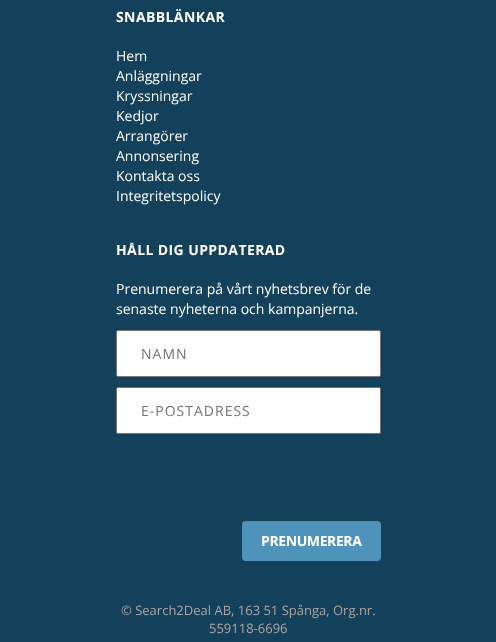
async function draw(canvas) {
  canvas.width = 496
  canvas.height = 642
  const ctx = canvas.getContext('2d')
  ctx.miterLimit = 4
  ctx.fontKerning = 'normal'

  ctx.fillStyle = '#13405a'
  ctx.fillRect(0, 0, 496, 642)
  ctx.letterSpacing = '0.4px'
  ctx.font = 'bold 14px Open Sans'
  ctx.fillStyle = '#fff'
  ctx.fillText('SNABBLÄNKAR', 116, 22)
  ctx.letterSpacing = '0px'
  ctx.font = '14px Open Sans'
  ctx.fillText('Hem', 116, 61)
  ctx.fillText('Anläggningar', 116, 81)
  ctx.fillText('Kryssningar', 116, 101)
  ctx.fillText('Kedjor', 116, 121)
  ctx.fillText('Arrangörer', 116, 141)
  ctx.fillText('Annonsering', 116, 161)
  ctx.fillText('Kontakta oss', 116, 181)
  ctx.fillText('Integritetspolicy', 116, 201)
  ctx.letterSpacing = '0.4px'
  ctx.font = 'bold 14px Open Sans'
  ctx.fillText('HÅLL DIG UPPDATERAD', 116, 255)
  ctx.letterSpacing = '0px'
  ctx.font = '14px Open Sans'
  ctx.fillText('Prenumerera på vårt nyhetsbrev för de', 116, 294)
  ctx.fillText('senaste nyheterna och kampanjerna.', 116, 314)
  ctx.beginPath()
  ctx.roundRect(116.5, 330.5, 264, 46, 1.5)
  ctx.fill()
  ctx.strokeStyle = '#767676'
  ctx.stroke()
  ctx.letterSpacing = '1px'
  ctx.fillStyle = '#727272'
  ctx.fillText('NAMN', 141, 359)
  ctx.fillStyle = '#fff'
  ctx.beginPath()
  ctx.roundRect(116.5, 387.5, 264, 46, 1.5)
  ctx.fill()
  ctx.stroke()
  ctx.fillStyle = '#727272'
  ctx.fillText('E-POSTADRESS', 141, 416)
  ctx.fillStyle = '#5093ba'
  ctx.beginPath()
  ctx.roundRect(242, 521, 139, 40, 4)
  ctx.fill()
  ctx.letterSpacing = '-0.4px'
  ctx.font = 'bold 14px Open Sans'
  ctx.fillStyle = '#fff'
  ctx.fillText('PRENUMERERA', 261, 546)
  ctx.letterSpacing = '0px'
  ctx.font = '13px Open Sans'
  ctx.fillStyle = '#aca4a4'
  ctx.fillText('© Search2Deal AB, 163 51 Spånga, Org.nr.', 121, 615)
  ctx.fillText('559118-6696', 209, 633)
}

draw(document.querySelector('canvas'))
